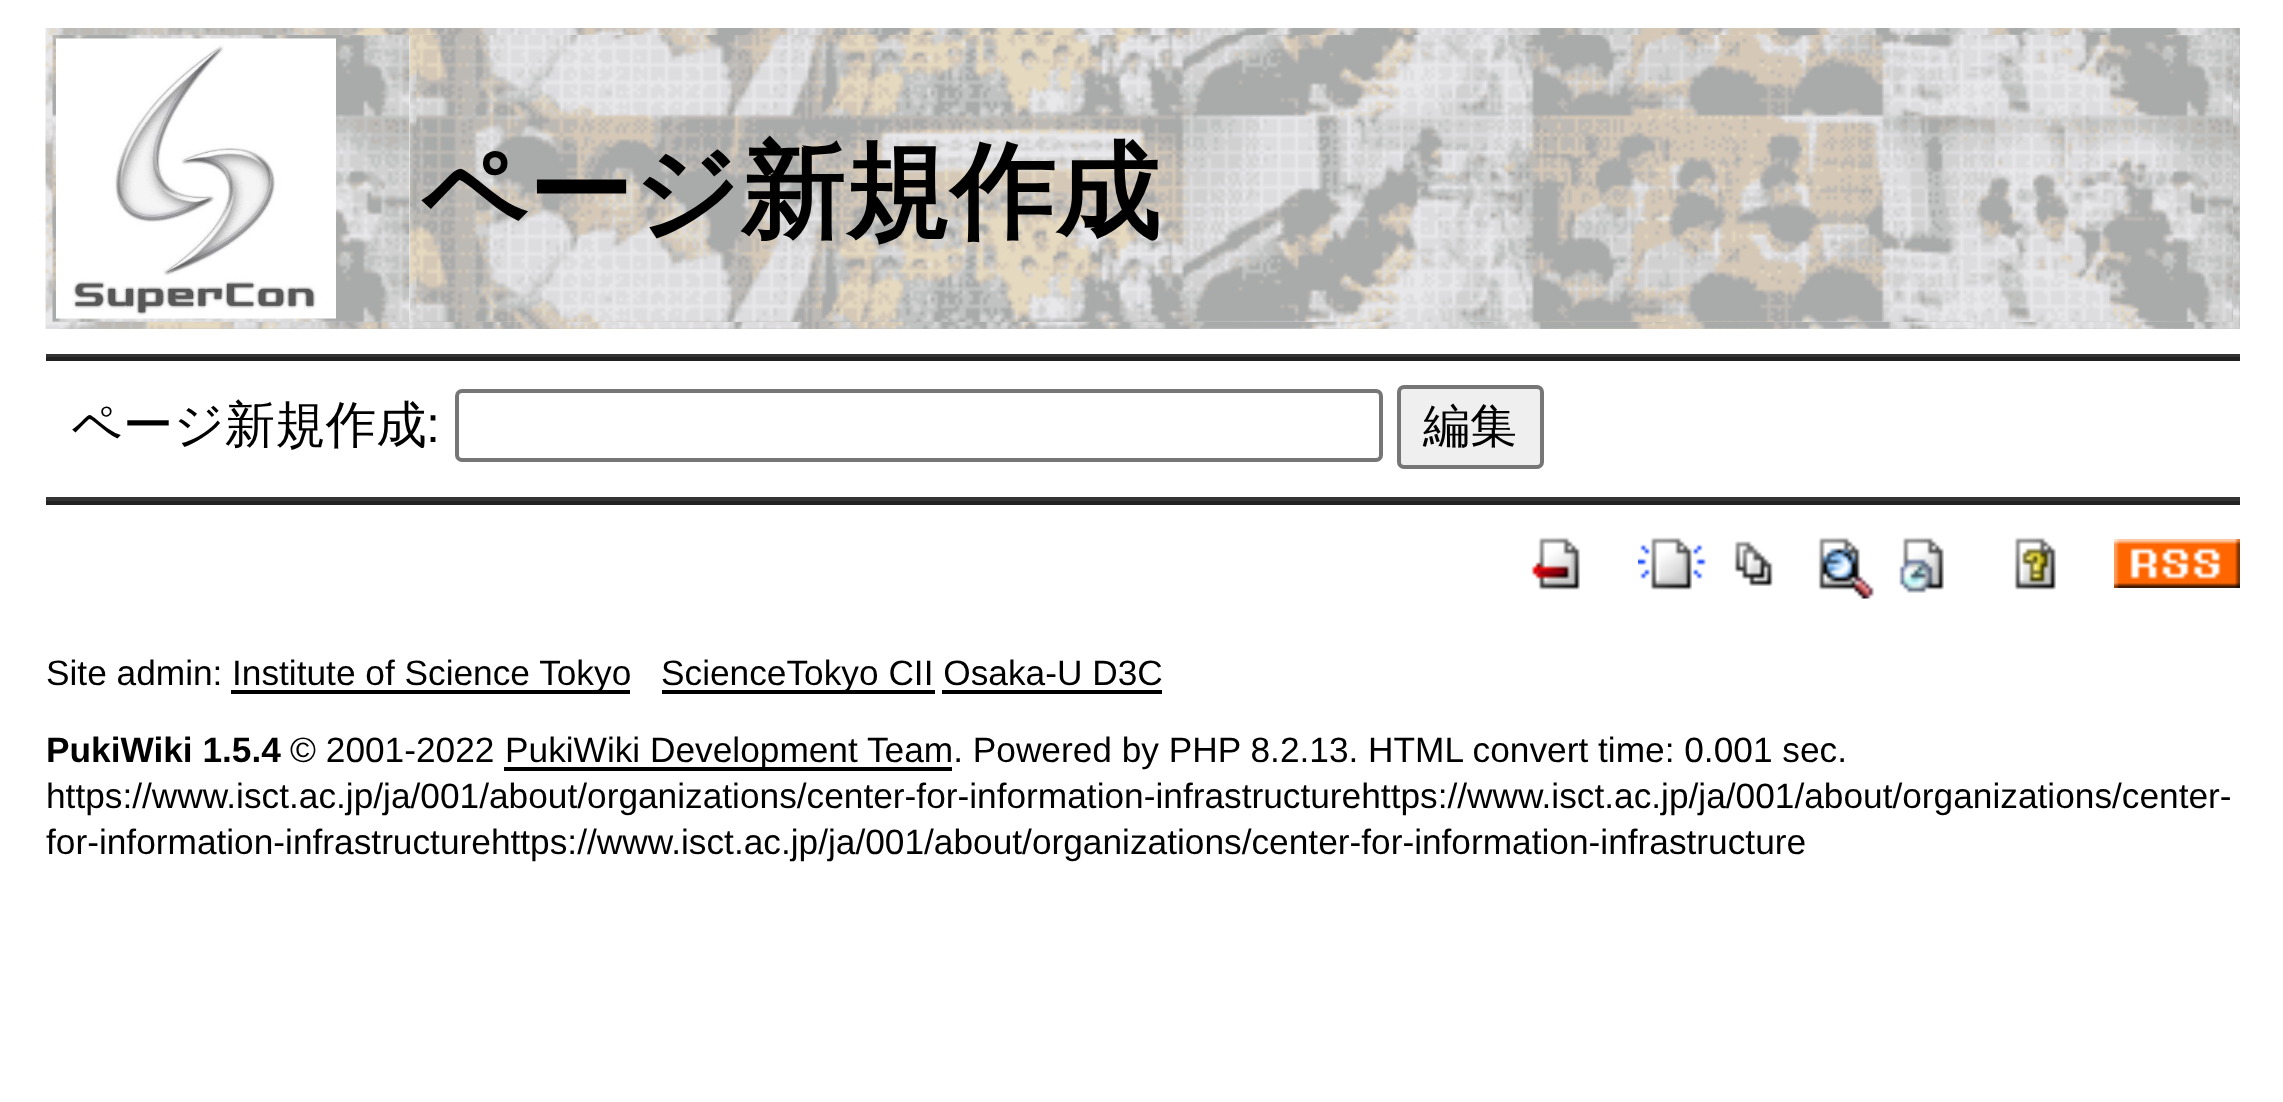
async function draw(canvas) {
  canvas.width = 2283
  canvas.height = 1102
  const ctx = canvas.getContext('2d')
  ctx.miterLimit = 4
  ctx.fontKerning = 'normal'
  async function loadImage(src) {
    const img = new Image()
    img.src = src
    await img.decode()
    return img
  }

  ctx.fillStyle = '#fff'
  ctx.fillRect(0, 0, 2283, 1102)
  ctx.drawImage(await loadImage('image0.png'), 45, 28, 2195, 301)
  ctx.fillRect(409, 35, 1, 287)
  ctx.drawImage(await loadImage('image1.png'), 52, 35, 358, 287)
  ctx.drawImage(await loadImage('image2.png'), 56, 38, 280, 281)
  ctx.drawImage(await loadImage('image3.png'), 416, 35, 1817, 287)
  ctx.font = 'bold 105px WenQuanYi Zen Hei'
  ctx.fillStyle = '#000'
  ctx.fillText('ページ新規作成', 420, 228)
  ctx.fillStyle = '#333'
  ctx.fillRect(46, 354, 2194, 3)
  ctx.fillStyle = '#222'
  ctx.fillRect(46, 357, 2194, 4)
  ctx.font = '500 50.5px WenQuanYi Zen Hei'
  ctx.fillStyle = '#000'
  ctx.fillText('ページ新規作成', 71, 442)
  ctx.font = '50.5px Liberation Sans'
  ctx.fillText(':', 426, 442)
  ctx.beginPath()
  ctx.roundRect(457, 391, 924, 69, 5)
  ctx.strokeStyle = '#767676'
  ctx.lineWidth = 4
  ctx.stroke()
  ctx.fillStyle = '#efefef'
  ctx.beginPath()
  ctx.roundRect(1399, 387, 143, 80, 5)
  ctx.fill()
  ctx.stroke()
  ctx.font = '500 47px WenQuanYi Zen Hei'
  ctx.fillStyle = '#000'
  ctx.fillText('編集', 1423, 442)
  ctx.fillStyle = '#333'
  ctx.fillRect(46, 497, 2194, 4)
  ctx.fillStyle = '#222'
  ctx.fillRect(46, 501, 2194, 4)
  ctx.drawImage(await loadImage('image4.png'), 1531, 537, 49, 53)
  ctx.drawImage(await loadImage('image5.png'), 1638, 537, 68, 53)
  ctx.drawImage(await loadImage('image6.png'), 1734, 541, 39, 45)
  ctx.drawImage(await loadImage('image7.png'), 1818, 537, 56, 62)
  ctx.drawImage(await loadImage('image8.png'), 1899, 537, 45, 56)
  ctx.drawImage(await loadImage('image9.png'), 2014, 537, 42, 53)
  ctx.drawImage(await loadImage('image10.png'), 2114, 539, 126, 49)
  ctx.font = '35.28px Liberation Sans'
  ctx.fillStyle = '#000'
  ctx.fillText('Site admin:', 46, 685)
  ctx.fillRect(231, 690, 399, 4)
  ctx.fillText('Institute of Science Tokyo', 232, 685)
  ctx.fillRect(662, 690, 273, 4)
  ctx.fillText('ScienceTokyo CII Osaka-U D3C', 661, 685)
  ctx.fillRect(942, 690, 220, 4)
  ctx.font = 'bold 35.28px Liberation Sans'
  ctx.fillText('PukiWiki 1.5.4', 46, 762)
  ctx.font = '35.28px Liberation Sans'
  ctx.fillText('© 2001-2022', 290, 762)
  ctx.fillRect(504, 767, 448, 4)
  ctx.fillText('PukiWiki Development Team. Powered by PHP 8.2.13. HTML convert time: 0.001 sec.', 505, 762)
  ctx.fillText('https://www.isct.ac.jp/ja/001/about/organizations/center-for-information-infrastructurehttps://www.isct.ac.jp/ja/001/about/organizations/center-', 46, 808)
  ctx.fillText('for-information-infrastructurehttps://www.isct.ac.jp/ja/001/about/organizations/center-for-information-infrastructure', 46, 854)
}

draw(document.querySelector('canvas'))
